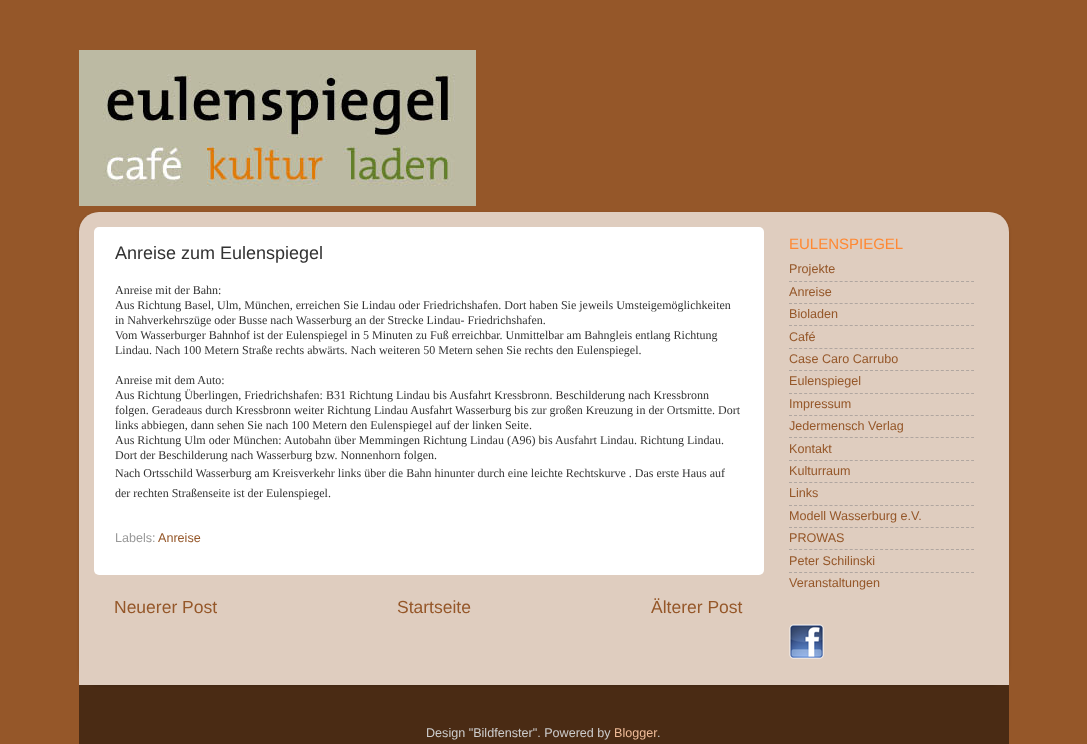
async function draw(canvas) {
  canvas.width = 1087
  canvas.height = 744
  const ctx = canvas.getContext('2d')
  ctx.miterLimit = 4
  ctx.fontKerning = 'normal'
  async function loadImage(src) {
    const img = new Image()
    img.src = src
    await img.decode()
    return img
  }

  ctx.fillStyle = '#955729'
  ctx.fillRect(0, 0, 1087, 744)
  ctx.drawImage(await loadImage('image0.png'), 79, 50, 397, 156)
  ctx.save()
  ctx.beginPath()
  ctx.moveTo(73, 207)
  ctx.lineTo(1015, 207)
  ctx.lineTo(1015, 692)
  ctx.lineTo(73, 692)
  ctx.closePath()
  ctx.moveTo(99, 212)
  ctx.lineTo(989, 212)
  ctx.bezierCurveTo(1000, 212, 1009, 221, 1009, 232)
  ctx.lineTo(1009, 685)
  ctx.lineTo(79, 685)
  ctx.lineTo(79, 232)
  ctx.bezierCurveTo(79, 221, 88, 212, 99, 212)
  ctx.closePath()
  ctx.clip('evenodd')
  ctx.fillStyle = '#00000026'
  ctx.filter = 'blur(1.5px)'
  ctx.beginPath()
  ctx.roundRect(79, 213, 930, 473, 20)
  ctx.fill()
  ctx.filter = 'none'
  ctx.restore()
  ctx.drawImage(await loadImage('image1.png'), 79, 212, 930, 473)
  ctx.fillStyle = '#fff'
  ctx.beginPath()
  ctx.roundRect(94, 227, 670, 348, 5)
  ctx.fill()
  ctx.font = '18px Liberation Sans'
  ctx.fillStyle = '#333'
  ctx.fillText('Anreise zum Eulenspiegel', 115, 259)
  ctx.font = '12px Liberation Serif'
  ctx.fillText('Anreise mit der Bahn:', 115, 294)
  ctx.fillText('Aus Richtung Basel, Ulm, München, erreichen Sie Lindau oder Friedrichshafen. Dort haben Sie jeweils Umsteigemöglichkeiten', 115, 309)
  ctx.fillText('in Nahverkehrszüge oder Busse nach Wasserburg an der Strecke Lindau- Friedrichshafen.', 115, 324)
  ctx.fillText('Vom Wasserburger Bahnhof ist der Eulenspiegel in 5 Minuten zu Fuß erreichbar. Unmittelbar am Bahngleis entlang Richtung', 115, 339)
  ctx.fillText('Lindau. Nach 100 Metern Straße rechts abwärts. Nach weiteren 50 Metern sehen Sie rechts den Eulenspiegel.', 115, 354)
  ctx.fillText('Anreise mit dem Auto:', 115, 384)
  ctx.fillText('Aus Richtung Überlingen, Friedrichshafen: B31 Richtung Lindau bis Ausfahrt Kressbronn. Beschilderung nach Kressbronn', 115, 399)
  ctx.fillText('folgen. Geradeaus durch Kressbronn weiter Richtung Lindau Ausfahrt Wasserburg bis zur großen Kreuzung in der Ortsmitte. Dort', 115, 414)
  ctx.fillText('links abbiegen, dann sehen Sie nach 100 Metern den Eulenspiegel auf der linken Seite.', 115, 429)
  ctx.fillText('Aus Richtung Ulm oder München: Autobahn über Memmingen Richtung Lindau (A96) bis Ausfahrt Lindau. Richtung Lindau.', 115, 444)
  ctx.fillText('Dort der Beschilderung nach Wasserburg bzw. Nonnenhorn folgen.', 115, 459)
  ctx.fillText('Nach Ortsschild Wasserburg am Kreisverkehr links über die Bahn hinunter durch eine leichte Rechtskurve . Das erste Haus auf', 115, 477)
  ctx.fillText('der rechten Straßenseite ist der Eulenspiegel.', 115, 497)
  ctx.font = '12.6px Liberation Sans'
  ctx.fillStyle = '#999'
  ctx.fillText('Labels:', 115, 542)
  ctx.fillStyle = '#955729'
  ctx.fillText('Anreise', 158, 542)
  ctx.font = '17.5px Liberation Sans'
  ctx.fillText('Neuerer Post', 114, 613)
  ctx.fillText('Startseite', 397, 613)
  ctx.fillText('Älterer Post', 651, 613)
  ctx.font = '15px Liberation Sans'
  ctx.fillStyle = '#ff8832'
  ctx.fillText('EULENSPIEGEL', 789, 249)
  ctx.font = '12.6px Liberation Sans'
  ctx.fillStyle = '#955729'
  ctx.fillText('Projekte', 789, 273)
  ctx.beginPath()
  ctx.moveTo(789, 281.5)
  ctx.lineTo(974, 281.5)
  ctx.strokeStyle = '#b0a6a0'
  ctx.setLineDash([3, 2.06])
  ctx.stroke()
  ctx.fillText('Anreise', 789, 296)
  ctx.beginPath()
  ctx.moveTo(789, 303.5)
  ctx.lineTo(974, 303.5)
  ctx.stroke()
  ctx.fillText('Bioladen', 789, 318)
  ctx.beginPath()
  ctx.moveTo(789, 325.5)
  ctx.lineTo(974, 325.5)
  ctx.stroke()
  ctx.fillText('Café', 789, 341)
  ctx.beginPath()
  ctx.moveTo(789, 348.5)
  ctx.lineTo(974, 348.5)
  ctx.stroke()
  ctx.fillText('Case Caro Carrubo', 789, 363)
  ctx.beginPath()
  ctx.moveTo(789, 370.5)
  ctx.lineTo(974, 370.5)
  ctx.stroke()
  ctx.fillText('Eulenspiegel', 789, 385)
  ctx.beginPath()
  ctx.moveTo(789, 393.5)
  ctx.lineTo(974, 393.5)
  ctx.stroke()
  ctx.fillText('Impressum', 789, 408)
  ctx.beginPath()
  ctx.moveTo(789, 415.5)
  ctx.lineTo(974, 415.5)
  ctx.stroke()
  ctx.fillText('Jedermensch Verlag', 789, 430)
  ctx.beginPath()
  ctx.moveTo(789, 437.5)
  ctx.lineTo(974, 437.5)
  ctx.stroke()
  ctx.fillText('Kontakt', 789, 453)
  ctx.beginPath()
  ctx.moveTo(789, 460.5)
  ctx.lineTo(974, 460.5)
  ctx.stroke()
  ctx.fillText('Kulturraum', 789, 475)
  ctx.beginPath()
  ctx.moveTo(789, 482.5)
  ctx.lineTo(974, 482.5)
  ctx.stroke()
  ctx.fillText('Links', 789, 497)
  ctx.beginPath()
  ctx.moveTo(789, 505.5)
  ctx.lineTo(974, 505.5)
  ctx.stroke()
  ctx.fillText('Modell Wasserburg e.V.', 789, 520)
  ctx.beginPath()
  ctx.moveTo(789, 527.5)
  ctx.lineTo(974, 527.5)
  ctx.stroke()
  ctx.fillText('PROWAS', 789, 542)
  ctx.beginPath()
  ctx.moveTo(789, 549.5)
  ctx.lineTo(974, 549.5)
  ctx.stroke()
  ctx.fillText('Peter Schilinski', 789, 565)
  ctx.beginPath()
  ctx.moveTo(789, 572.5)
  ctx.lineTo(974, 572.5)
  ctx.stroke()
  ctx.fillText('Veranstaltungen', 789, 587)
  ctx.drawImage(await loadImage('image2.png'), 789, 624, 35, 35)
  ctx.fillStyle = '#00000080'
  ctx.fillRect(79, 685, 930, 59)
  ctx.fillStyle = '#ccc'
  ctx.fillText('Design "Bildfenster". Powered by', 426, 737)
  ctx.fillStyle = '#eebb98'
  ctx.fillText('Blogger', 614, 737)
  ctx.fillStyle = '#ccc'
  ctx.fillText('.', 657, 737)
}

draw(document.querySelector('canvas'))
